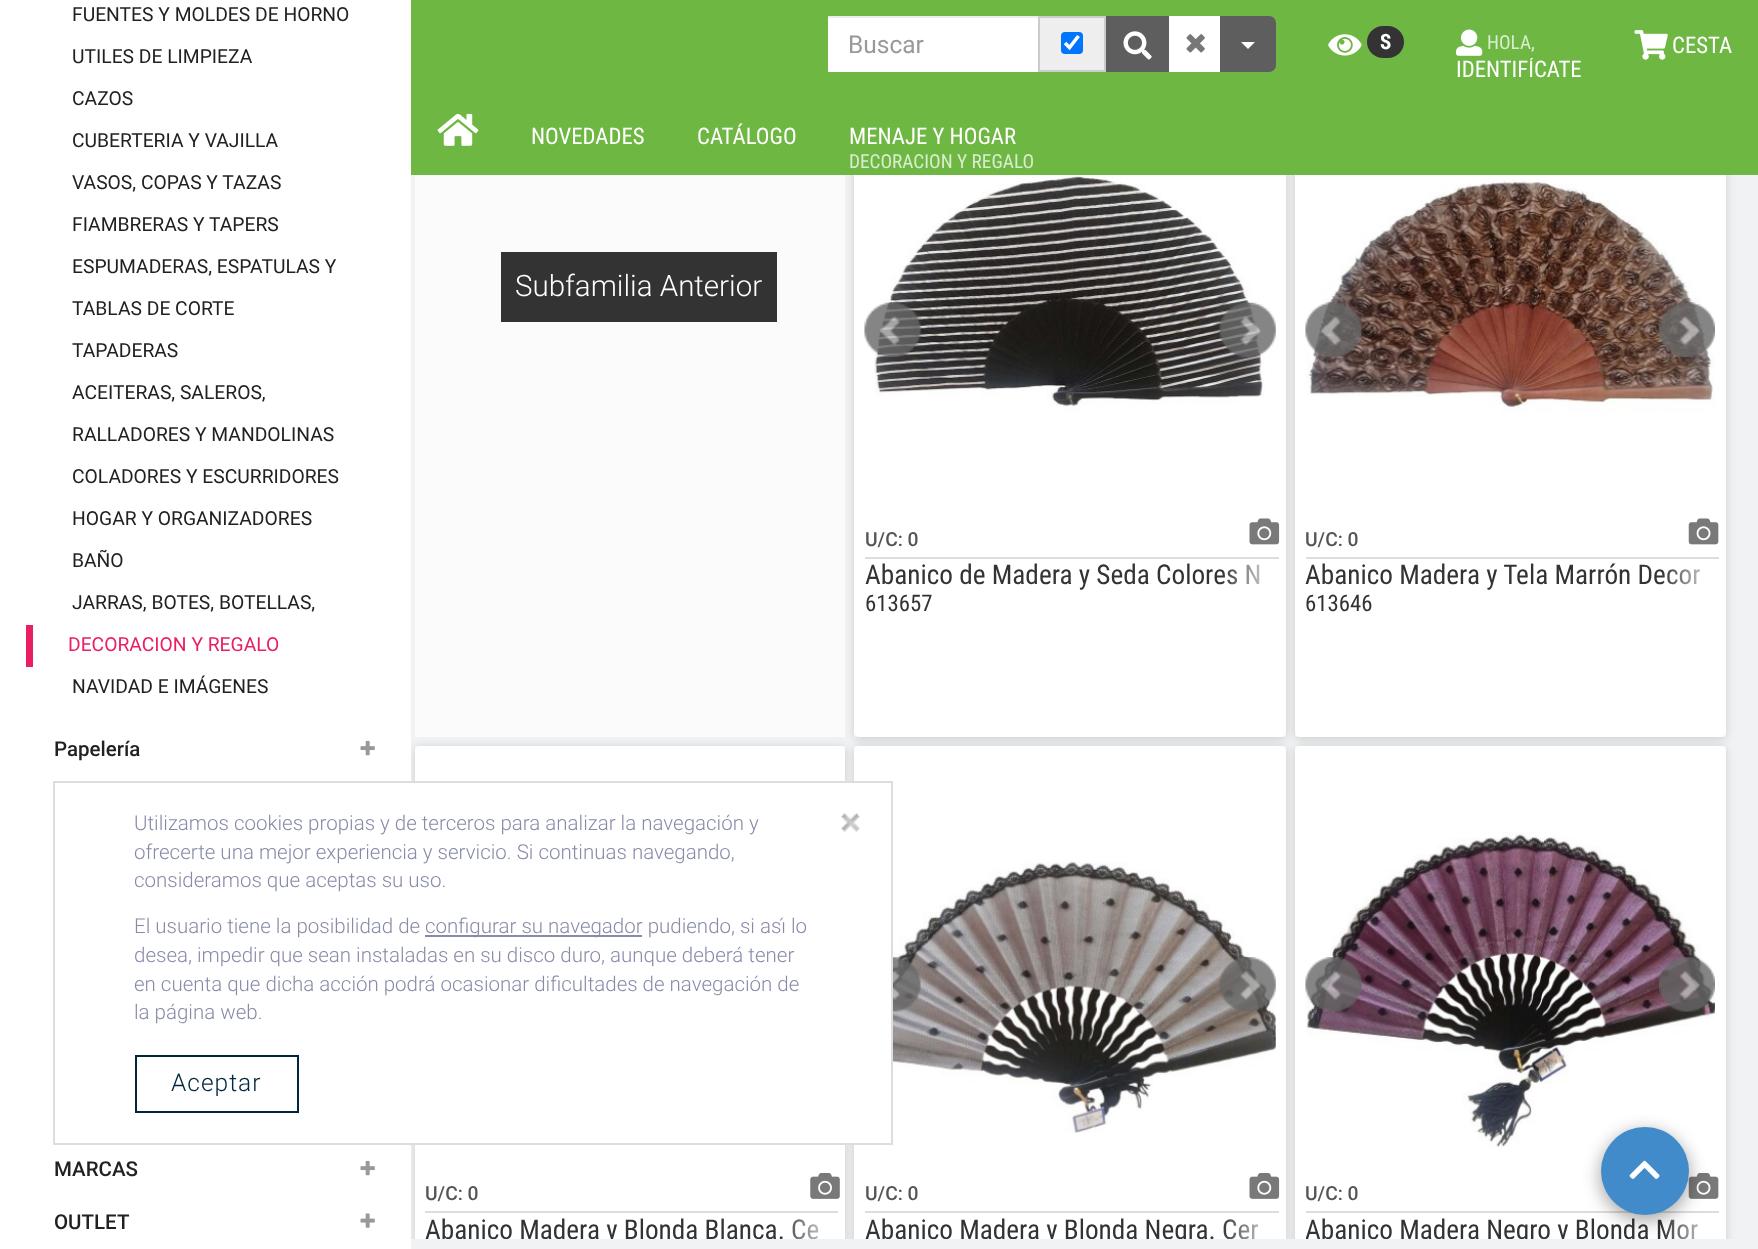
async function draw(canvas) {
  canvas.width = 1758
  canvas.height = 1249
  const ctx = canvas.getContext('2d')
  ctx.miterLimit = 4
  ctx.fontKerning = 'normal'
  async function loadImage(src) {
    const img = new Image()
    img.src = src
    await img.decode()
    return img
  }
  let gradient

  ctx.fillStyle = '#f1f2f3'
  ctx.fillRect(0, 0, 1758, 1249)
  ctx.fillStyle = '#fff'
  ctx.fillRect(415, 732, 430, 5)
  ctx.fillStyle = '#fbfbfb'
  ctx.beginPath()
  ctx.roundRect(415, 91, 430, 646, 5)
  ctx.fill()
  ctx.fillStyle = '#fff'
  ctx.fillRect(854, 732, 432, 5)
  ctx.fillStyle = '#00000026'
  ctx.filter = 'blur(5px)'
  ctx.beginPath()
  ctx.roundRect(854, 93, 432, 646, 5)
  ctx.fill()
  ctx.filter = 'none'
  ctx.fillStyle = '#fff'
  ctx.beginPath()
  ctx.roundRect(854, 91, 432, 646, 5)
  ctx.fill()
  ctx.fillRect(415, 746, 430, 493)
  ctx.save()
  ctx.beginPath()
  ctx.rect(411, 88, 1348, 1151)
  ctx.clip()
  ctx.beginPath()
  ctx.moveTo(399, 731)
  ctx.lineTo(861, 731)
  ctx.lineTo(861, 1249)
  ctx.lineTo(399, 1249)
  ctx.closePath()
  ctx.moveTo(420, 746)
  ctx.lineTo(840, 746)
  ctx.bezierCurveTo(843, 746, 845, 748, 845, 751)
  ctx.lineTo(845, 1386)
  ctx.bezierCurveTo(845, 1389, 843, 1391, 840, 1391)
  ctx.lineTo(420, 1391)
  ctx.bezierCurveTo(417, 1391, 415, 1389, 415, 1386)
  ctx.lineTo(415, 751)
  ctx.bezierCurveTo(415, 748, 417, 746, 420, 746)
  ctx.closePath()
  ctx.clip('evenodd')
  ctx.fillStyle = '#00000026'
  ctx.filter = 'blur(5px)'
  ctx.beginPath()
  ctx.roundRect(415, 747, 430, 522, 5)
  ctx.fill()
  ctx.filter = 'none'
  ctx.restore()
  ctx.fillRect(0, 0, 411, 1249)
  ctx.font = '19.3px Roboto'
  ctx.fillStyle = '#212121'
  ctx.fillText('FUENTES Y MOLDES DE HORNO', 72, 21)
  ctx.fillText('UTILES DE LIMPIEZA', 72, 63)
  ctx.fillText('CAZOS', 72, 105)
  ctx.fillText('CUBERTERIA Y VAJILLA', 72, 147)
  ctx.fillText('VASOS, COPAS Y TAZAS', 72, 189)
  ctx.fillText('FIAMBRERAS Y TAPERS', 72, 231)
  ctx.fillText('ESPUMADERAS, ESPATULAS Y', 72, 273)
  ctx.fillText('TABLAS DE CORTE', 72, 315)
  ctx.fillText('TAPADERAS', 72, 357)
  ctx.fillText('ACEITERAS, SALEROS,', 72, 399)
  ctx.fillText('RALLADORES Y MANDOLINAS', 72, 441)
  ctx.fillText('COLADORES Y ESCURRIDORES', 72, 483)
  ctx.fillText('HOGAR Y ORGANIZADORES', 72, 525)
  ctx.fillText('BAÑO', 72, 567)
  ctx.fillText('JARRAS, BOTES, BOTELLAS,', 72, 609)
  ctx.fillStyle = '#e91e63'
  ctx.fillRect(26, 625, 7, 42)
  ctx.fillText('DECORACION Y REGALO', 68, 651)
  ctx.fillStyle = '#212121'
  ctx.fillText('NAVIDAD E IMÁGENES', 72, 693)
  ctx.font = '500 20.5px Roboto'
  ctx.fillText('Papelería', 54, 756)
  ctx.drawImage(await loadImage('image0.png'), 360, 740, 15, 16)
  ctx.fillText('MARCAS', 54, 1176)
  ctx.drawImage(await loadImage('image0.png'), 360, 1160, 15, 16)
  ctx.fillText('OUTLET', 54, 1229)
  ctx.drawImage(await loadImage('image1.png'), 360, 1213, 15, 15)
  ctx.drawImage(await loadImage('image11.png'), 1249, 518, 31, 27)
  ctx.fillStyle = '#fff'
  ctx.fillRect(1295, 732, 431, 5)
  ctx.fillStyle = '#00000026'
  ctx.filter = 'blur(5px)'
  ctx.beginPath()
  ctx.roundRect(1295, 93, 431, 646, 5)
  ctx.fill()
  ctx.filter = 'none'
  ctx.fillStyle = '#fff'
  ctx.beginPath()
  ctx.roundRect(1295, 91, 431, 646, 5)
  ctx.fill()
  ctx.fillStyle = '#6db742'
  ctx.fillRect(411, 0, 1347, 175)
  ctx.fillStyle = '#fff'
  ctx.fillRect(828, 18, 210, 54)
  ctx.fillStyle = '#ececec'
  ctx.fillRect(828, 16, 210, 2)
  ctx.font = '24.5px Roboto'
  ctx.fillStyle = '#999'
  ctx.fillText('Buscar', 848, 53)
  ctx.fillStyle = '#eee'
  ctx.beginPath()
  ctx.rect(1039, 17, 66, 54)
  ctx.fill()
  ctx.strokeStyle = '#ccc'
  ctx.lineWidth = 2
  ctx.stroke()
  ctx.fillStyle = '#0075ff'
  ctx.beginPath()
  ctx.roundRect(1061, 32, 22, 22, 4)
  ctx.fill()
  ctx.beginPath()
  ctx.moveTo(1065, 43)
  ctx.lineTo(1069.5, 47.5)
  ctx.lineTo(1078.5, 36)
  ctx.strokeStyle = '#fff'
  ctx.lineWidth = 3.6
  ctx.stroke()
  ctx.fillStyle = '#5e5e5e'
  ctx.fillRect(1106, 16, 63, 56)
  ctx.drawImage(await loadImage('image2.png'), 1123, 31, 29, 29)
  ctx.fillStyle = '#fff'
  ctx.fillRect(1169, 16, 51, 56)
  ctx.drawImage(await loadImage('image3.png'), 1186, 34, 19, 19)
  ctx.fillStyle = '#5e5e5e'
  ctx.beginPath()
  ctx.roundRect(1220, 16, 56, 56, [0, 7, 7, 0])
  ctx.fill()
  ctx.fillStyle = '#fff'
  ctx.beginPath()
  ctx.moveTo(1241, 42)
  ctx.lineTo(1255, 42)
  ctx.lineTo(1248, 49)
  ctx.closePath()
  ctx.fill()
  ctx.drawImage(await loadImage('image4.png'), 1328, 34, 34, 22)
  ctx.fillStyle = '#333'
  ctx.beginPath()
  ctx.roundRect(1367, 26, 37, 32, 16)
  ctx.fill()
  ctx.font = 'bold 21px Roboto Condensed'
  ctx.fillStyle = '#fff'
  ctx.fillText('S', 1380, 49)
  ctx.drawImage(await loadImage('image5.png'), 1456, 29, 27, 27)
  ctx.font = '19.3px Roboto Condensed'
  ctx.fillStyle = '#dbedd0'
  ctx.fillText('HOLA,', 1487, 49)
  ctx.save()
  ctx.beginPath()
  ctx.rect(1456, 58, 126, 23)
  ctx.clip()
  ctx.font = '22.75px Roboto Condensed'
  ctx.fillStyle = '#fff'
  ctx.fillText('IDENTIFÍCATE', 1456, 77)
  ctx.restore()
  ctx.drawImage(await loadImage('image6.png'), 1634, 30, 34, 30)
  ctx.font = '22.75px Roboto Condensed'
  ctx.fillStyle = '#fff'
  ctx.fillText('CESTA', 1672, 53)
  ctx.drawImage(await loadImage('image7.png'), 437, 113, 42, 33)
  ctx.fillText('NOVEDADES', 531, 144)
  ctx.fillText('CATÁLOGO', 697, 144)
  ctx.fillText('MENAJE Y HOGAR', 849, 144)
  ctx.font = '19.3px Roboto Condensed'
  ctx.fillStyle = '#dbedd0'
  ctx.fillText('DECORACION Y REGALO', 849, 168)
  ctx.fillStyle = '#333'
  ctx.fillRect(501, 252, 276, 70)
  ctx.font = '300 29.5px Roboto'
  ctx.fillStyle = '#fff'
  ctx.fillText('Subfamilia Anterior', 515, 296)
  ctx.drawImage(await loadImage('image8.png'), 874, 176, 391, 236)
  ctx.drawImage(await loadImage('image9.png'), 864, 302, 57, 55)
  ctx.drawImage(await loadImage('image10.png'), 1219, 302, 57, 55)
  ctx.fillStyle = '#ddd'
  ctx.fillRect(865, 557, 414, 2)
  ctx.font = '500 19.3px Roboto'
  ctx.fillStyle = '#555'
  ctx.fillText('U/C: 0', 865, 546)
  ctx.font = '27.25px Roboto Condensed'
  ctx.fillStyle = '#333'
  ctx.fillText('Abanico de Madera y Seda Colores N', 865, 584)
  gradient = ctx.createLinearGradient(865, 604, 1279, 604)
  gradient.addColorStop(0.86, '#ffffff00')
  gradient.addColorStop(1, '#fff')
  ctx.fillStyle = gradient
  ctx.fillRect(1222, 564, 39, 21)
  ctx.font = '22.75px Roboto Condensed'
  ctx.fillStyle = '#333'
  ctx.fillText('613657', 865, 611)
  ctx.drawImage(await loadImage('image12.png'), 1306, 179, 409, 234)
  ctx.drawImage(await loadImage('image13.png'), 1305, 302, 57, 55)
  ctx.drawImage(await loadImage('image14.png'), 1659, 302, 56, 55)
  ctx.fillStyle = '#ddd'
  ctx.fillRect(1306, 557, 413, 2)
  ctx.font = '500 19.3px Roboto'
  ctx.fillStyle = '#555'
  ctx.fillText('U/C: 0', 1305, 546)
  ctx.drawImage(await loadImage('image15.png'), 1688, 518, 31, 27)
  ctx.font = '27.25px Roboto Condensed'
  ctx.fillStyle = '#333'
  ctx.fillText('Abanico Madera y Tela Marrón Decor', 1305, 584)
  gradient = ctx.createLinearGradient(1306, 604, 1719, 604)
  gradient.addColorStop(0.86, '#ffffff00')
  gradient.addColorStop(1, '#fff')
  ctx.fillStyle = gradient
  ctx.fillRect(1662, 569, 39, 16)
  ctx.font = '22.75px Roboto Condensed'
  ctx.fillStyle = '#333'
  ctx.fillText('613646', 1305, 611)
  ctx.fillStyle = '#ddd'
  ctx.fillRect(425, 1211, 413, 2)
  ctx.font = '500 19.3px Roboto'
  ctx.fillStyle = '#555'
  ctx.fillText('U/C: 0', 425, 1200)
  ctx.drawImage(await loadImage('image16.png'), 810, 1173, 30, 26)
  ctx.save()
  ctx.beginPath()
  ctx.rect(425, 1215, 413, 24)
  ctx.clip()
  ctx.font = '27.25px Roboto Condensed'
  ctx.fillStyle = '#333'
  ctx.fillText('Abanico Madera y Blonda Blanca. Ce', 425, 1239)
  ctx.restore()
  gradient = ctx.createLinearGradient(425, 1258, 838, 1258)
  gradient.addColorStop(0.86, '#ffffff00')
  gradient.addColorStop(1, '#fff')
  ctx.fillStyle = gradient
  ctx.fillRect(781, 1219, 39, 20)
  ctx.fillStyle = '#fff'
  ctx.fillRect(854, 746, 432, 5)
  ctx.save()
  ctx.beginPath()
  ctx.rect(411, 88, 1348, 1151)
  ctx.clip()
  ctx.fillStyle = '#00000026'
  ctx.filter = 'blur(5px)'
  ctx.beginPath()
  ctx.roundRect(854, 747, 432, 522, 5)
  ctx.fill()
  ctx.filter = 'none'
  ctx.restore()
  ctx.beginPath()
  ctx.roundRect(854, 746, 432, 493, [5, 5, 0, 0])
  ctx.fill()
  ctx.drawImage(await loadImage('image17.png'), 893, 861, 383, 272)
  ctx.drawImage(await loadImage('image18.png'), 893, 957, 28, 55)
  ctx.drawImage(await loadImage('image19.png'), 1219, 957, 57, 55)
  ctx.fillStyle = '#ddd'
  ctx.fillRect(865, 1211, 414, 2)
  ctx.fillStyle = '#555'
  ctx.fillText('U/C: 0', 865, 1200)
  ctx.drawImage(await loadImage('image20.png'), 1249, 1173, 31, 26)
  ctx.save()
  ctx.beginPath()
  ctx.rect(865, 1215, 414, 24)
  ctx.clip()
  ctx.font = '27.25px Roboto Condensed'
  ctx.fillStyle = '#333'
  ctx.fillText('Abanico Madera y Blonda Negra. Cer', 865, 1239)
  ctx.restore()
  gradient = ctx.createLinearGradient(865, 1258, 1279, 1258)
  gradient.addColorStop(0.86, '#ffffff00')
  gradient.addColorStop(1, '#fff')
  ctx.fillStyle = gradient
  ctx.fillRect(1224, 1219, 35, 20)
  ctx.fillStyle = '#fff'
  ctx.fillRect(1295, 746, 431, 5)
  ctx.save()
  ctx.beginPath()
  ctx.rect(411, 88, 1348, 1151)
  ctx.clip()
  ctx.fillStyle = '#00000026'
  ctx.filter = 'blur(5px)'
  ctx.beginPath()
  ctx.roundRect(1295, 747, 431, 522, 5)
  ctx.fill()
  ctx.filter = 'none'
  ctx.restore()
  ctx.beginPath()
  ctx.roundRect(1295, 746, 431, 493, [5, 5, 0, 0])
  ctx.fill()
  ctx.drawImage(await loadImage('image21.png'), 1306, 832, 409, 315)
  ctx.drawImage(await loadImage('image22.png'), 1305, 957, 57, 55)
  ctx.drawImage(await loadImage('image23.png'), 1659, 957, 56, 55)
  ctx.fillStyle = '#ddd'
  ctx.fillRect(1306, 1211, 413, 2)
  ctx.fillStyle = '#555'
  ctx.fillText('U/C: 0', 1305, 1200)
  ctx.drawImage(await loadImage('image24.png'), 1688, 1173, 31, 26)
  ctx.save()
  ctx.beginPath()
  ctx.rect(1306, 1215, 413, 24)
  ctx.clip()
  ctx.font = '27.25px Roboto Condensed'
  ctx.fillStyle = '#333'
  ctx.fillText('Abanico Madera Negro y Blonda Mor', 1305, 1239)
  ctx.restore()
  gradient = ctx.createLinearGradient(1306, 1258, 1719, 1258)
  gradient.addColorStop(0.86, '#ffffff00')
  gradient.addColorStop(1, '#fff')
  ctx.fillStyle = gradient
  ctx.fillRect(1662, 1219, 37, 20)
  ctx.fillStyle = '#0000003b'
  ctx.filter = 'blur(9px)'
  ctx.beginPath()
  ctx.roundRect(1601, 1132, 88, 88, 44)
  ctx.fill()
  ctx.filter = 'none'
  ctx.fillStyle = '#00000029'
  ctx.filter = 'blur(9px)'
  ctx.beginPath()
  ctx.roundRect(1601, 1132, 88, 88, 44)
  ctx.fill()
  ctx.filter = 'none'
  ctx.fillStyle = '#428bca'
  ctx.beginPath()
  ctx.arc(1645, 1171, 44, 0, 2 * Math.PI)
  ctx.fill()
  ctx.drawImage(await loadImage('image25.png'), 1629, 1160, 31, 19)
  ctx.fillStyle = '#fff'
  ctx.fillRect(411, 783, 443, 360)
  ctx.strokeStyle = '#ddd'
  ctx.lineWidth = 2
  ctx.strokeRect(54, 782, 838, 362)
  ctx.font = '300 20.5px Roboto'
  ctx.fillStyle = '#878ba8'
  ctx.fillText('Utilizamos cookies propias y de terceros para analizar la navegación y', 134, 830)
  ctx.fillText('ofrecerte una mejor experiencia y servicio. Si continuas navegando,', 134, 859)
  ctx.fillText('consideramos que aceptas su uso.', 134, 887)
  ctx.drawImage(await loadImage('image26.png'), 841, 813, 19, 19)
  ctx.fillText('El usuario tiene la posibilidad de', 134, 933)
  ctx.fillRect(425, 935, 217, 2)
  ctx.fillText('configurar su navegador pudiendo, si así lo', 425, 933)
  ctx.fillText('desea, impedir que sean instaladas en su disco duro, aunque deberá tener', 134, 962)
  ctx.fillText('en cuenta que dicha acción podrá ocasionar dificultades de navegación de', 134, 991)
  ctx.fillText('la página web.', 134, 1019)
  ctx.strokeStyle = '#00273d'
  ctx.strokeRect(136, 1056, 162, 56)
  ctx.letterSpacing = '1px'
  ctx.font = '300 24.5px Roboto'
  ctx.fillStyle = '#00273d'
  ctx.fillText('Aceptar', 171, 1091)
}

draw(document.querySelector('canvas'))
